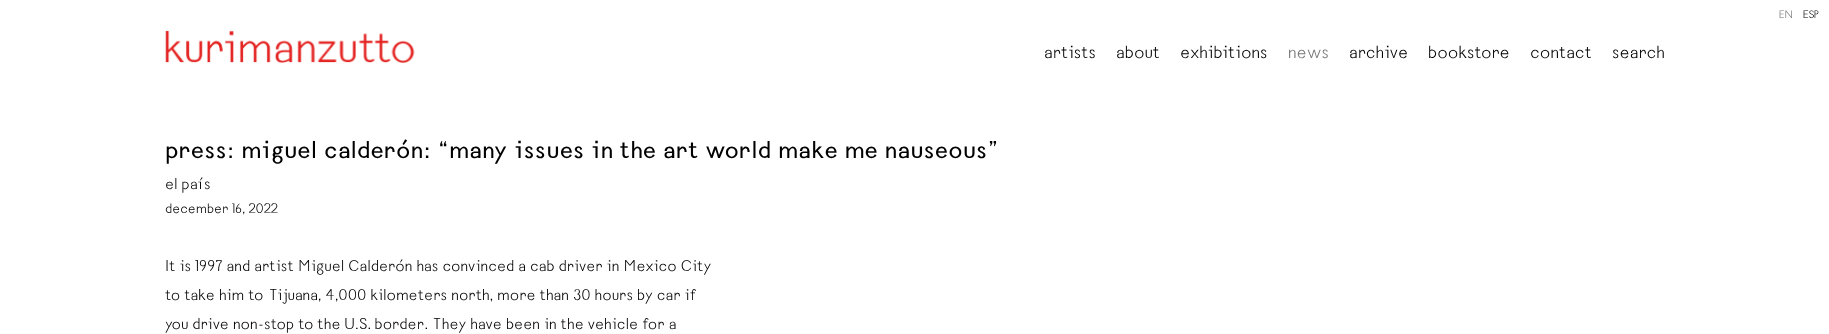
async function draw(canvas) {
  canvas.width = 1829
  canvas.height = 334
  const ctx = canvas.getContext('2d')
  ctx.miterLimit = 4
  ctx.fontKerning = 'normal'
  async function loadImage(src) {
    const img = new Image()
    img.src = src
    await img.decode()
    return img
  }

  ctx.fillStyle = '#fff'
  ctx.fillRect(0, 0, 1829, 334)
  ctx.font = '11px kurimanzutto'
  ctx.fillStyle = '#757575'
  ctx.fillText('EN', 1779, 18)
  ctx.fillStyle = '#000'
  ctx.fillText('ESP', 1803, 18)
  ctx.drawImage(await loadImage('image0.png'), 165, 30, 250, 33)
  ctx.font = '18px kurimanzutto'
  ctx.fillText('artists', 1044, 58)
  ctx.fillText('about', 1116, 58)
  ctx.fillText('exhibitions', 1180, 58)
  ctx.fillStyle = '#757575'
  ctx.fillText('news', 1288, 58)
  ctx.fillStyle = '#000'
  ctx.fillText('archive', 1349, 58)
  ctx.fillText('bookstore', 1428, 58)
  ctx.fillText('contact', 1530, 58)
  ctx.fillText('search', 1612, 58)
  ctx.font = 'bold 25px kurimanzutto'
  ctx.fillText('press: miguel calderón: “many issues in the art world make me nauseous”', 165, 158)
  ctx.font = '16px kurimanzutto'
  ctx.fillText('el país', 165, 189)
  ctx.font = '14px kurimanzutto'
  ctx.fillText('december 16, 2022', 165, 213)
  ctx.font = '16px kurimanzutto'
  ctx.fillText('It is 1997 and artist Miguel Calderón has convinced a cab driver in Mexico City', 165, 271)
  ctx.fillText('to take him to Tijuana, 4,000 kilometers north, more than 30 hours by car if', 165, 300)
  ctx.fillText('you drive non-stop to the U.S. border. They have been in the vehicle for a', 165, 329)
}

draw(document.querySelector('canvas'))
